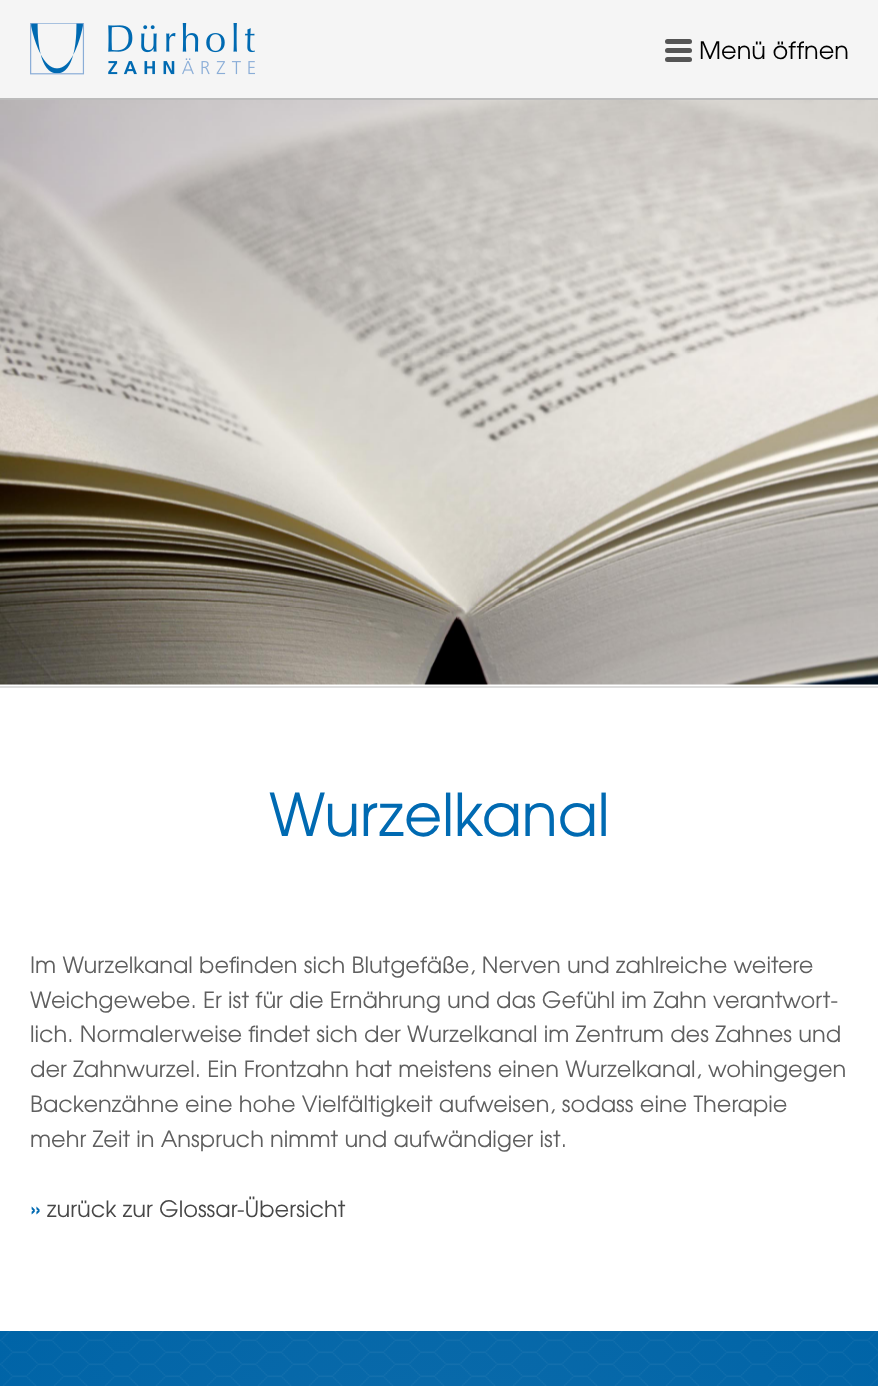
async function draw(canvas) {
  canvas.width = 878
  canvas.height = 1386
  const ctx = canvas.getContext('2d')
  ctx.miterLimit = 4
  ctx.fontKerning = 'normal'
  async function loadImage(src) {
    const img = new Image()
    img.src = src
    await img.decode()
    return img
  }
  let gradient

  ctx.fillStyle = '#fff'
  ctx.fillRect(0, 0, 878, 1386)
  ctx.fillStyle = '#bbb'
  ctx.fillRect(0, 98, 878, 2)
  ctx.fillStyle = '#f5f5f5'
  ctx.fillRect(0, 0, 878, 98)
  ctx.drawImage(await loadImage('image0.png'), 30, 23, 225, 52)
  ctx.fillStyle = '#555'
  ctx.beginPath()
  ctx.roundRect(665, 39, 27, 5, 2.5)
  ctx.fill()
  ctx.beginPath()
  ctx.roundRect(665, 48, 27, 5, 2.5)
  ctx.fill()
  ctx.beginPath()
  ctx.roundRect(665, 57, 27, 5, 2.5)
  ctx.fill()
  ctx.font = '24px TeX Gyre Adventor'
  ctx.fillStyle = '#000'
  ctx.fillText('Menü öffnen', 699, 59)
  ctx.fillStyle = '#ddd'
  ctx.fillRect(0, 686, 878, 2)
  ctx.drawImage(await loadImage('image1.png'), 0, 100, 878, 585)
  ctx.font = '58.75px TeX Gyre Adventor'
  ctx.fillStyle = '#006ab2'
  ctx.fillText('Wurzelkanal', 269, 836)
  ctx.font = '22.5px TeX Gyre Adventor'
  ctx.fillStyle = '#5f5f5f'
  ctx.fillText('Im Wurzelkanal befinden sich Blutgefäße, Nerven und zahlreiche weitere', 30, 973)
  ctx.fillText('Weichgewebe. Er ist für die Ernährung und das Gefühl im Zahn verantwort-', 30, 1008)
  ctx.fillText('lich. Normalerweise findet sich der Wurzelkanal im Zentrum des Zahnes und', 30, 1042)
  ctx.fillText('der Zahnwurzel. Ein Frontzahn hat meistens einen Wurzelkanal, wohingegen', 30, 1077)
  ctx.fillText('Backenzähne eine hohe Vielfältigkeit aufweisen, sodass eine Therapie', 30, 1112)
  ctx.fillText('mehr Zeit in Anspruch nimmt und aufwändiger ist.', 30, 1147)
  ctx.font = 'bold 22.5px TeX Gyre Adventor'
  ctx.fillStyle = '#006ab2'
  ctx.fillText('»', 30, 1217)
  ctx.font = '22.5px TeX Gyre Adventor'
  ctx.fillStyle = '#474747'
  ctx.fillText('zurück zur Glossar-Übersicht', 47, 1217)
  gradient = ctx.createRadialGradient(440, 1577, 0, 440, 1577, 504)
  gradient.addColorStop(0, '#0d6cab')
  gradient.addColorStop(1, '#0064a7')
  ctx.fillStyle = gradient
  ctx.fillRect(0, 1331, 878, 55)
  ctx.drawImage(await loadImage('image2.png'), 0, 1331, 878, 55)
}

draw(document.querySelector('canvas'))
